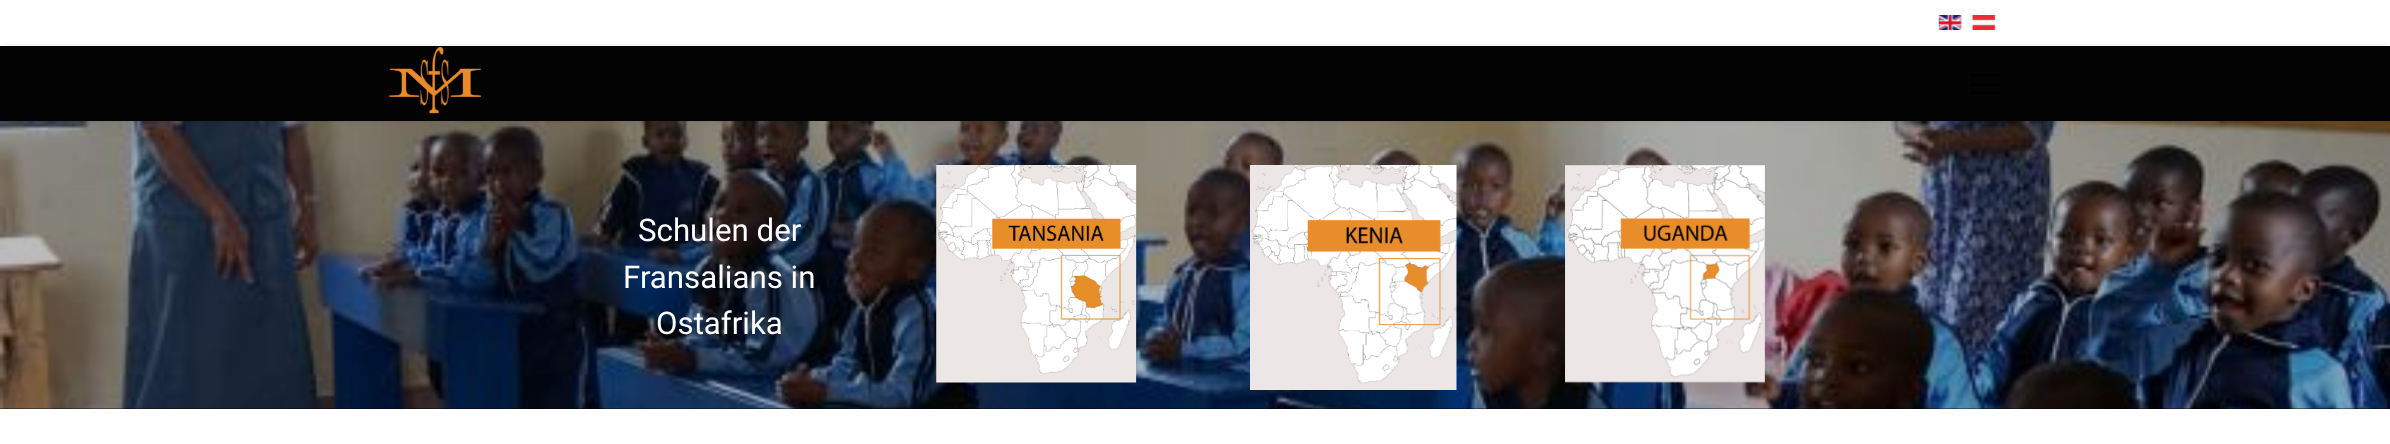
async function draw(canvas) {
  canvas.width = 2390
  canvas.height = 444
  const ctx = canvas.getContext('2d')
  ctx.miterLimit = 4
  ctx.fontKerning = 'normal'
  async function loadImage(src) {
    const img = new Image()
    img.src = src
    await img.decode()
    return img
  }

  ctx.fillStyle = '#fff'
  ctx.fillRect(0, 0, 2390, 444)
  ctx.drawImage(await loadImage('image0.png'), 1938, 15, 24, 15)
  ctx.drawImage(await loadImage('image1.png'), 1971, 15, 25, 15)
  ctx.fillStyle = '#000'
  ctx.fillRect(0, 121, 2390, 288)
  ctx.drawImage(await loadImage('image3.png'), 0, 121, 2390, 288)
  ctx.fillStyle = '#0000001a'
  ctx.filter = 'blur(2.5px)'
  ctx.beginPath()
  ctx.rect(0, 46, 2390, 75)
  ctx.fill()
  ctx.filter = 'none'
  ctx.fillStyle = '#030303'
  ctx.fillRect(0, 46, 2390, 75)
  ctx.drawImage(await loadImage('image2.png'), 389, 46, 93, 68)
  ctx.fillStyle = '#000'
  ctx.fillRect(1970, 74, 31, 3)
  ctx.fillRect(1970, 83, 31, 3)
  ctx.fillRect(1970, 91, 31, 3)
  ctx.font = '31.25px Roboto'
  ctx.fillStyle = '#fff'
  ctx.fillText('Schulen der', 638, 241)
  ctx.fillText('Fransalians in', 623, 288)
  ctx.fillText('Ostafrika', 656, 334)
  ctx.drawImage(await loadImage('image4.png'), 936, 165, 201, 218)
  ctx.drawImage(await loadImage('image5.png'), 1250, 165, 207, 225)
  ctx.drawImage(await loadImage('image6.png'), 1565, 165, 200, 218)
}

draw(document.querySelector('canvas'))
